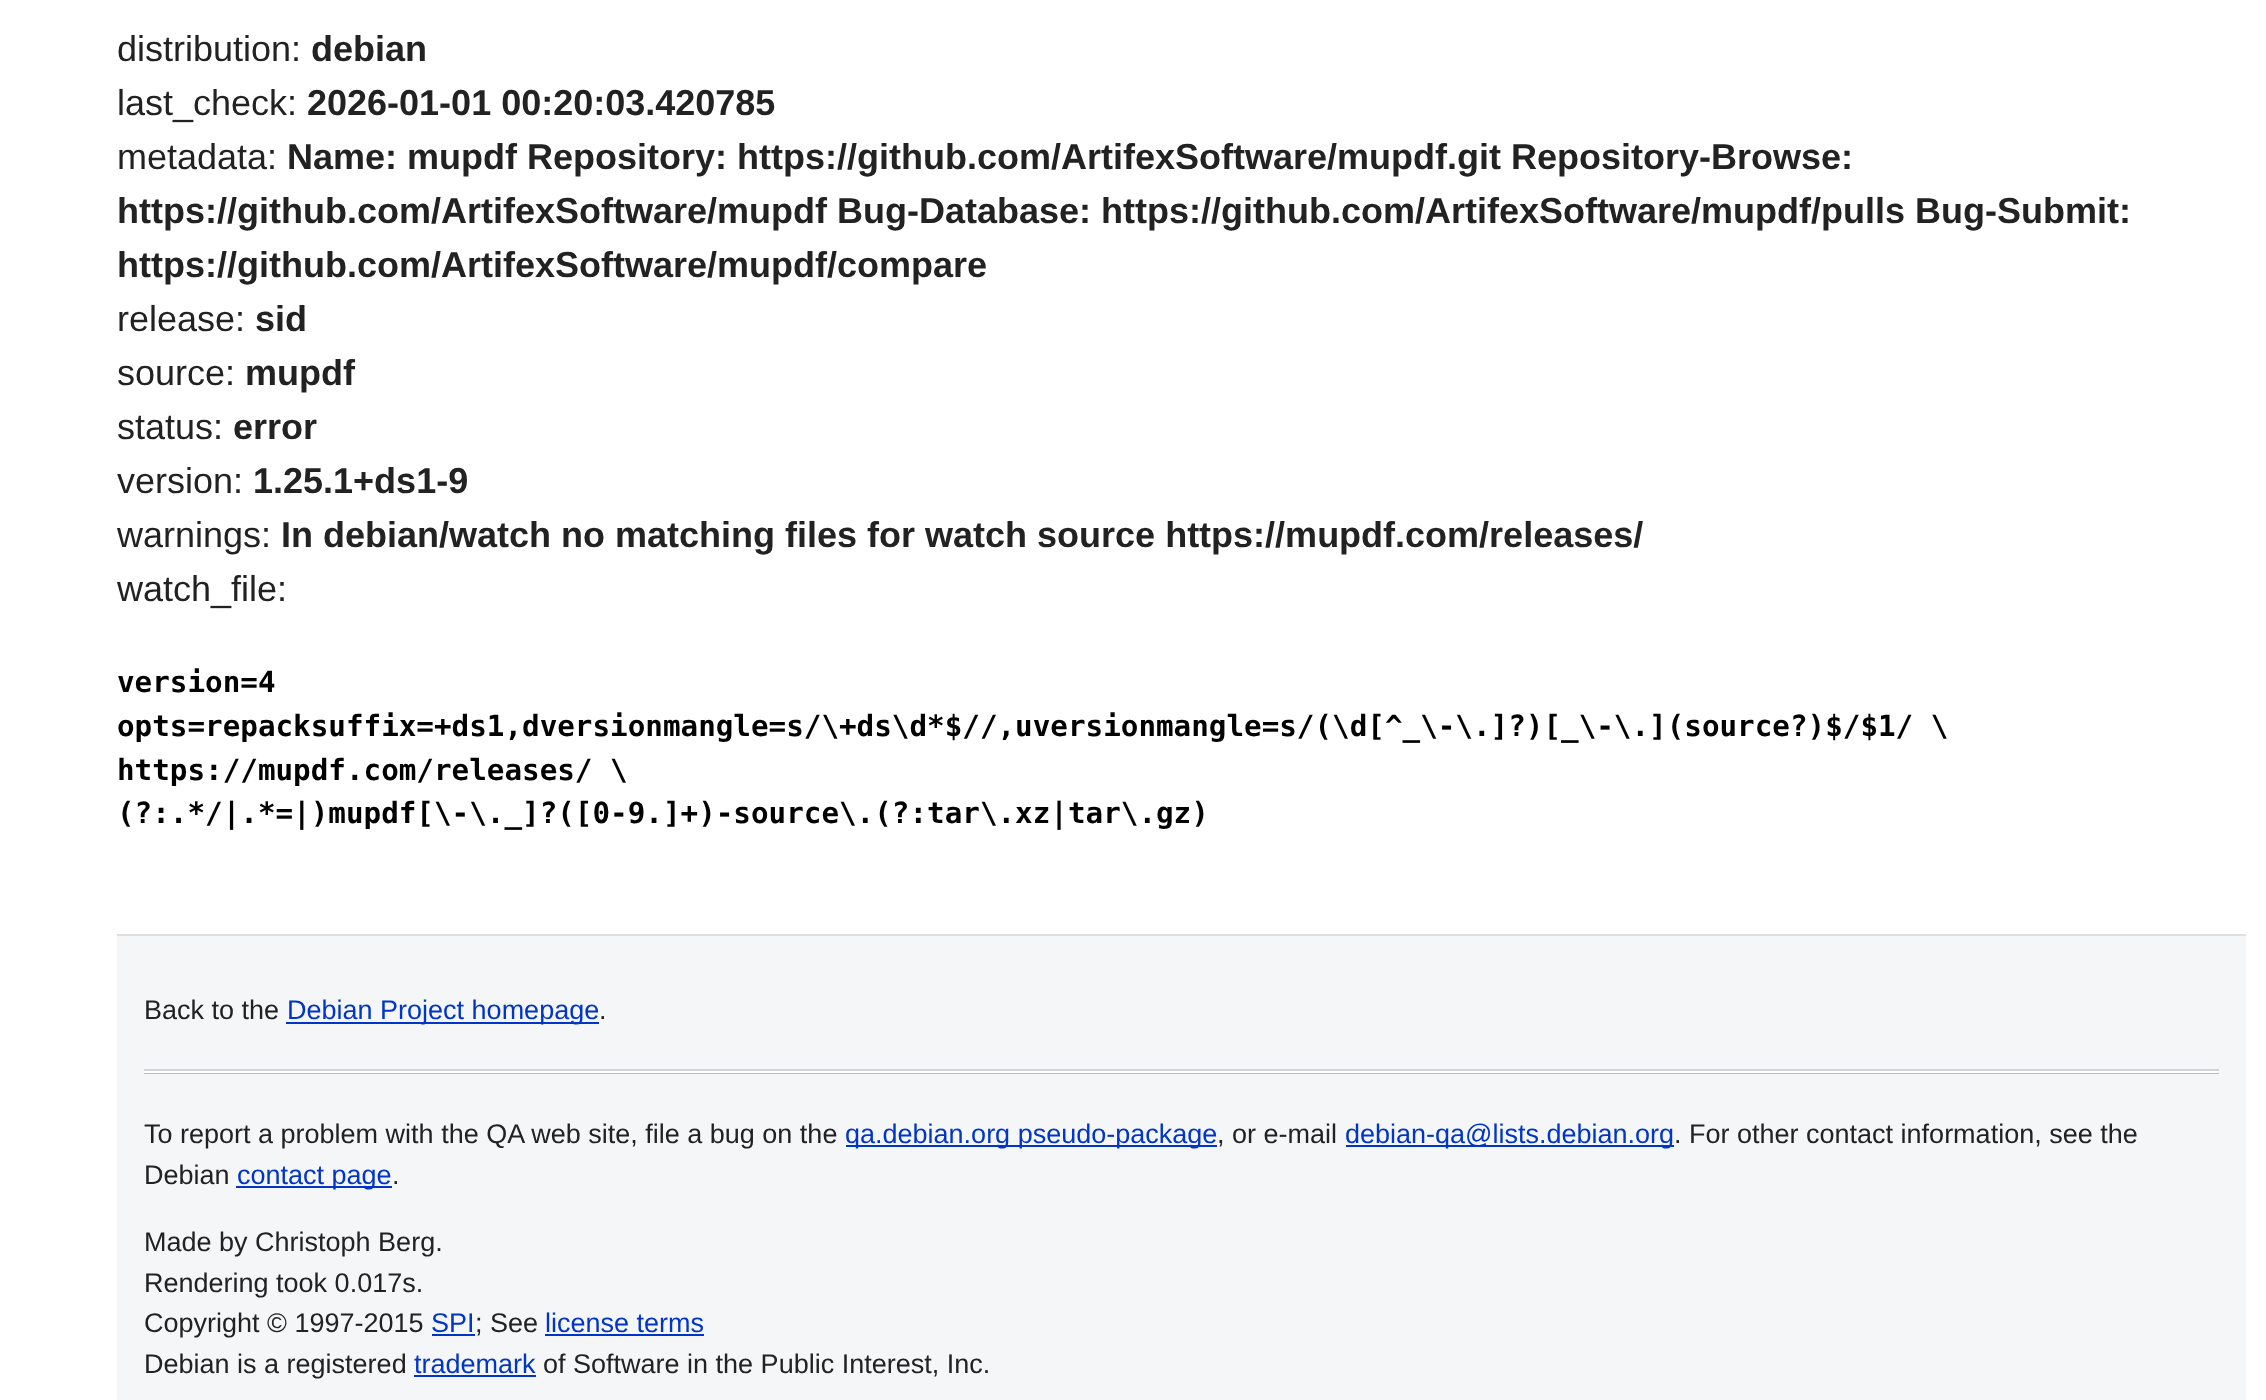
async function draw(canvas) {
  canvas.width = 2266
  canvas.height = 1400
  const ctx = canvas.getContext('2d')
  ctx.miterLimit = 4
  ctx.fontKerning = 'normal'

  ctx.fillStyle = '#fff'
  ctx.fillRect(0, 0, 2266, 1400)
  ctx.font = '36px Liberation Sans'
  ctx.fillStyle = '#222'
  ctx.fillText('distribution:', 117, 61)
  ctx.font = 'bold 36px Liberation Sans'
  ctx.fillText('debian', 311, 61)
  ctx.font = '36px Liberation Sans'
  ctx.fillText('last_check:', 117, 115)
  ctx.font = 'bold 36px Liberation Sans'
  ctx.fillText('2026-01-01 00:20:03.420785', 307, 115)
  ctx.font = '36px Liberation Sans'
  ctx.fillText('metadata:', 117, 169)
  ctx.font = 'bold 36px Liberation Sans'
  ctx.fillText('Name: mupdf Repository: https://github.com/ArtifexSoftware/mupdf.git Repository-Browse:', 287, 169)
  ctx.fillText('https://github.com/ArtifexSoftware/mupdf Bug-Database: https://github.com/ArtifexSoftware/mupdf/pulls Bug-Submit:', 117, 223)
  ctx.fillText('https://github.com/ArtifexSoftware/mupdf/compare', 117, 277)
  ctx.font = '36px Liberation Sans'
  ctx.fillText('release:', 117, 331)
  ctx.font = 'bold 36px Liberation Sans'
  ctx.fillText('sid', 255, 331)
  ctx.font = '36px Liberation Sans'
  ctx.fillText('source:', 117, 385)
  ctx.font = 'bold 36px Liberation Sans'
  ctx.fillText('mupdf', 245, 385)
  ctx.font = '36px Liberation Sans'
  ctx.fillText('status:', 117, 439)
  ctx.font = 'bold 36px Liberation Sans'
  ctx.fillText('error', 233, 439)
  ctx.font = '36px Liberation Sans'
  ctx.fillText('version:', 117, 493)
  ctx.font = 'bold 36px Liberation Sans'
  ctx.fillText('1.25.1+ds1-9', 253, 493)
  ctx.font = '36px Liberation Sans'
  ctx.fillText('warnings:', 117, 547)
  ctx.font = 'bold 36px Liberation Sans'
  ctx.fillText('In debian/watch no matching files for watch source https://mupdf.com/releases/', 281, 547)
  ctx.font = '36px Liberation Sans'
  ctx.fillText('watch_file:', 117, 601)
  ctx.font = 'bold 29.25px DejaVu Sans Mono'
  ctx.fillStyle = '#000'
  ctx.fillText('version=4', 117, 692)
  ctx.fillText('opts=repacksuffix=+ds1,dversionmangle=s/\\+ds\\d*$//,uversionmangle=s/(\\d[^_\\-\\.]?)[_\\-\\.](source?)$/$1/ \\', 117, 736)
  ctx.fillText('https://mupdf.com/releases/ \\', 117, 780)
  ctx.fillText('(?:.*/|.*=|)mupdf[\\-\\._]?([0-9.]+)-source\\.(?:tar\\.xz|tar\\.gz)', 117, 823)
  ctx.fillStyle = '#f5f6f7'
  ctx.fillRect(117, 936, 2129, 464)
  ctx.fillStyle = '#dfdfe0'
  ctx.fillRect(117, 934, 2129, 2)
  ctx.font = '27px Liberation Sans'
  ctx.fillStyle = '#222'
  ctx.fillText('Back to the', 144, 1019)
  ctx.fillStyle = '#0035c7'
  ctx.fillRect(286, 1022, 313, 2)
  ctx.fillText('Debian Project homepage', 287, 1019)
  ctx.fillStyle = '#222'
  ctx.fillText('.', 599, 1019)
  ctx.fillStyle = '#bbb'
  ctx.fillRect(144, 1073, 2075, 1)
  ctx.fillStyle = '#d2d3d7'
  ctx.fillRect(144, 1069, 2075, 2)
  ctx.fillStyle = '#fff'
  ctx.fillRect(144, 1071, 2075, 2)
  ctx.fillStyle = '#222'
  ctx.fillText('To report a problem with the QA web site, file a bug on the', 144, 1143)
  ctx.fillStyle = '#0035c7'
  ctx.fillRect(846, 1145, 371, 2)
  ctx.fillText('qa.debian.org pseudo-package', 845, 1143)
  ctx.fillStyle = '#222'
  ctx.fillText(', or e-mail', 1217, 1143)
  ctx.fillStyle = '#0035c7'
  ctx.fillRect(1346, 1145, 328, 2)
  ctx.fillText('debian-qa@lists.debian.org', 1345, 1143)
  ctx.fillStyle = '#222'
  ctx.fillText('. For other contact information, see the', 1674, 1143)
  ctx.fillText('Debian', 144, 1184)
  ctx.fillStyle = '#0035c7'
  ctx.fillRect(236, 1186, 156, 2)
  ctx.fillText('contact page', 237, 1184)
  ctx.fillStyle = '#222'
  ctx.fillText('.', 392, 1184)
  ctx.fillText('Made by Christoph Berg.', 144, 1251)
  ctx.fillText('Rendering took 0.017s.', 144, 1292)
  ctx.fillText('Copyright © 1997-2015', 144, 1332)
  ctx.fillStyle = '#0035c7'
  ctx.fillText('SPI', 431, 1332)
  ctx.fillRect(432, 1334, 43, 2)
  ctx.fillStyle = '#222'
  ctx.fillText('; See', 475, 1332)
  ctx.fillStyle = '#0035c7'
  ctx.fillText('license terms', 545, 1332)
  ctx.fillRect(545, 1334, 159, 2)
  ctx.fillStyle = '#222'
  ctx.fillText('Debian is a registered', 144, 1373)
  ctx.fillStyle = '#0035c7'
  ctx.fillText('trademark', 414, 1373)
  ctx.fillRect(414, 1375, 122, 2)
  ctx.fillStyle = '#222'
  ctx.fillText('of Software in the Public Interest, Inc.', 543, 1373)
}

draw(document.querySelector('canvas'))
